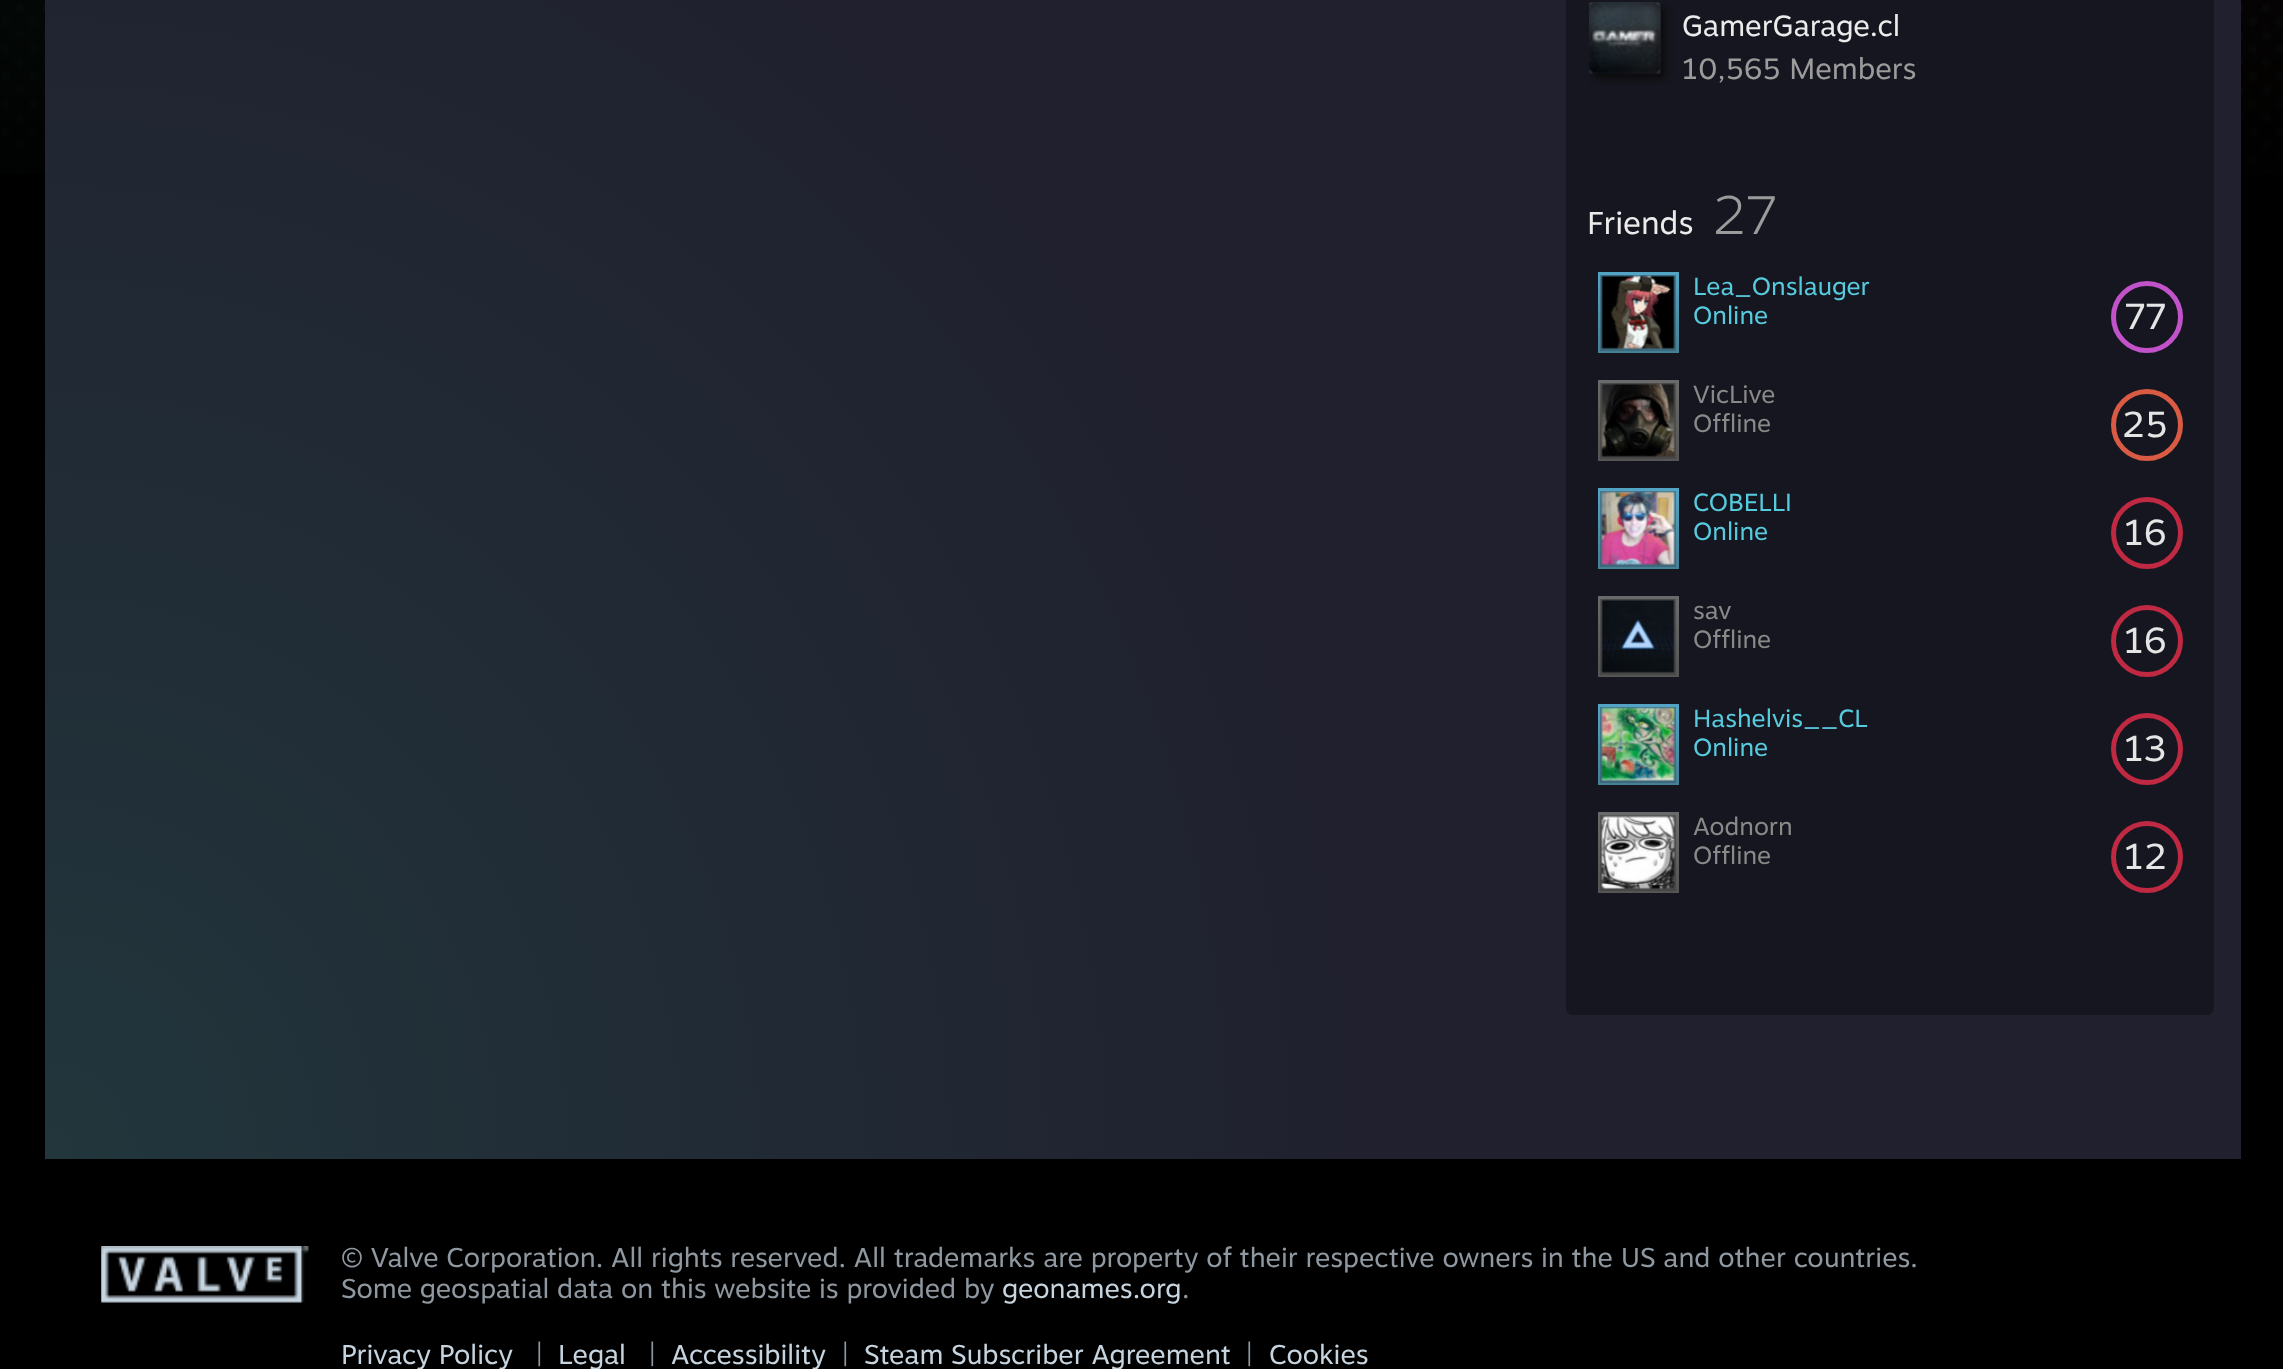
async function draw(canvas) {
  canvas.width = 2283
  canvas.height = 1369
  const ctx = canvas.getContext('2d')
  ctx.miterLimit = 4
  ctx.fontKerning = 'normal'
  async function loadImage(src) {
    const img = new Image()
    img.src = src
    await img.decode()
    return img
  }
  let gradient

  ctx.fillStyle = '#000'
  ctx.fillRect(0, 0, 2283, 1369)
  ctx.drawImage(await loadImage('image0.png'), 0, 0, 2283, 174)
  gradient = ctx.createRadialGradient(45, 1078.45, 0, 45, 1078.45, 3106)
  gradient.addColorStop(0, '#22363c')
  gradient.addColorStop(0.43, '#20202e')
  ctx.fillStyle = gradient
  ctx.beginPath()
  ctx.rect(45, 0, 2196, 1159)
  ctx.save()
  ctx.clip()
  ctx.scale(1, 3338 / 3106)
  ctx.fillRect(0, 0, 2283, 1274)
  ctx.restore()
  ctx.fillStyle = '#161620'
  ctx.beginPath()
  ctx.roundRect(1566, -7, 648, 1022, 7)
  ctx.fill()
  ctx.save()
  ctx.beginPath()
  ctx.rect(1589, 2, 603, 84)
  ctx.clip()
  ctx.beginPath()
  ctx.moveTo(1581, 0)
  ctx.lineTo(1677, 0)
  ctx.lineTo(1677, 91)
  ctx.lineTo(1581, 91)
  ctx.closePath()
  ctx.moveTo(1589, 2)
  ctx.lineTo(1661, 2)
  ctx.lineTo(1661, 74)
  ctx.lineTo(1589, 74)
  ctx.closePath()
  ctx.clip('evenodd')
  ctx.fillStyle = '#0c0c0c'
  ctx.filter = 'blur(3.5px)'
  ctx.beginPath()
  ctx.rect(1593, 7, 72, 72)
  ctx.fill()
  ctx.filter = 'none'
  ctx.restore()
  ctx.drawImage(await loadImage('image1.png'), 1589, 2, 72, 72)
  ctx.font = '29.25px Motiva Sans'
  ctx.fillStyle = '#ebebeb'
  ctx.fillText('GamerGarage.cl', 1682, 36)
  ctx.fillStyle = '#9b9b9b'
  ctx.fillText('10,565 Members', 1682, 79)
  ctx.font = '31.5px Motiva Sans'
  ctx.fillStyle = '#ebebeb'
  ctx.fillText('Friends', 1587, 234)
  ctx.font = '100 54px Motiva Sans'
  ctx.fillStyle = '#9b9b9b'
  ctx.fillText('27', 1712, 234)
  gradient = ctx.createLinearGradient(1638, 272, 1638, 353)
  gradient.addColorStop(0.05, '#53a4c4')
  gradient.addColorStop(0.95, '#458097')
  ctx.fillStyle = gradient
  ctx.fillRect(1598, 272, 81, 81)
  gradient = ctx.createLinearGradient(1638, 275, 1638, 351)
  gradient.addColorStop(0.05, '#41778f')
  gradient.addColorStop(0.95, '#3d697b')
  ctx.fillStyle = gradient
  ctx.fillRect(1600, 275, 76, 76)
  ctx.drawImage(await loadImage('image2.png'), 1601, 275, 74, 74)
  ctx.font = '24.75px Motiva Sans'
  ctx.fillStyle = '#57cbde'
  ctx.fillText('Lea_Onslauger', 1693, 295)
  ctx.fillText('Online', 1693, 324)
  ctx.beginPath()
  ctx.arc(2147, 317, 33.5, 0, 2 * Math.PI)
  ctx.strokeStyle = '#c252c9'
  ctx.lineWidth = 5
  ctx.stroke()
  ctx.font = '36px Motiva Sans'
  ctx.fillStyle = '#e5e5e5'
  ctx.fillText('77', 2125, 329)
  gradient = ctx.createLinearGradient(1638, 380, 1638, 461)
  gradient.addColorStop(0.05, '#6a6a6a')
  gradient.addColorStop(0.95, '#555')
  ctx.fillStyle = gradient
  ctx.fillRect(1598, 380, 81, 81)
  gradient = ctx.createLinearGradient(1638, 383, 1638, 459)
  gradient.addColorStop(0.05, '#515151')
  gradient.addColorStop(0.95, '#474747')
  ctx.fillStyle = gradient
  ctx.fillRect(1600, 383, 76, 76)
  ctx.drawImage(await loadImage('image3.png'), 1601, 383, 74, 74)
  ctx.font = '24.75px Motiva Sans'
  ctx.fillStyle = '#898989'
  ctx.fillText('VicLive', 1693, 403)
  ctx.fillText('Offline', 1693, 432)
  ctx.beginPath()
  ctx.arc(2147, 425, 33.5, 0, 2 * Math.PI)
  ctx.strokeStyle = '#d95b43'
  ctx.stroke()
  ctx.font = '36px Motiva Sans'
  ctx.fillStyle = '#e5e5e5'
  ctx.fillText('25', 2122, 437)
  gradient = ctx.createLinearGradient(1638, 488, 1638, 569)
  gradient.addColorStop(0.05, '#53a4c4')
  gradient.addColorStop(0.95, '#458097')
  ctx.fillStyle = gradient
  ctx.fillRect(1598, 488, 81, 81)
  gradient = ctx.createLinearGradient(1638, 491, 1638, 567)
  gradient.addColorStop(0.05, '#41778f')
  gradient.addColorStop(0.95, '#3d697b')
  ctx.fillStyle = gradient
  ctx.fillRect(1600, 491, 76, 76)
  ctx.drawImage(await loadImage('image4.png'), 1601, 491, 74, 74)
  ctx.font = '24.75px Motiva Sans'
  ctx.fillStyle = '#57cbde'
  ctx.fillText('COBELLI', 1693, 511)
  ctx.fillText('Online', 1693, 540)
  ctx.beginPath()
  ctx.arc(2147, 533, 33.5, 0, 2 * Math.PI)
  ctx.strokeStyle = '#c02942'
  ctx.stroke()
  ctx.font = '36px Motiva Sans'
  ctx.fillStyle = '#e5e5e5'
  ctx.fillText('16', 2124, 545)
  gradient = ctx.createLinearGradient(1638, 596, 1638, 677)
  gradient.addColorStop(0.05, '#6a6a6a')
  gradient.addColorStop(0.95, '#555')
  ctx.fillStyle = gradient
  ctx.fillRect(1598, 596, 81, 81)
  gradient = ctx.createLinearGradient(1638, 599, 1638, 675)
  gradient.addColorStop(0.05, '#515151')
  gradient.addColorStop(0.95, '#474747')
  ctx.fillStyle = gradient
  ctx.fillRect(1600, 599, 76, 76)
  ctx.drawImage(await loadImage('image5.png'), 1601, 599, 74, 74)
  ctx.font = '24.75px Motiva Sans'
  ctx.fillStyle = '#898989'
  ctx.fillText('sav', 1693, 619)
  ctx.fillText('Offline', 1693, 648)
  ctx.beginPath()
  ctx.arc(2147, 641, 33.5, 0, 2 * Math.PI)
  ctx.stroke()
  ctx.font = '36px Motiva Sans'
  ctx.fillStyle = '#e5e5e5'
  ctx.fillText('16', 2124, 653)
  gradient = ctx.createLinearGradient(1638, 704, 1638, 785)
  gradient.addColorStop(0.05, '#53a4c4')
  gradient.addColorStop(0.95, '#458097')
  ctx.fillStyle = gradient
  ctx.fillRect(1598, 704, 81, 81)
  gradient = ctx.createLinearGradient(1638, 707, 1638, 783)
  gradient.addColorStop(0.05, '#41778f')
  gradient.addColorStop(0.95, '#3d697b')
  ctx.fillStyle = gradient
  ctx.fillRect(1600, 707, 76, 76)
  ctx.drawImage(await loadImage('image6.png'), 1601, 707, 74, 74)
  ctx.font = '24.75px Motiva Sans'
  ctx.fillStyle = '#57cbde'
  ctx.fillText('Hashelvis__CL', 1693, 727)
  ctx.fillText('Online', 1693, 756)
  ctx.beginPath()
  ctx.arc(2147, 749, 33.5, 0, 2 * Math.PI)
  ctx.stroke()
  ctx.font = '36px Motiva Sans'
  ctx.fillStyle = '#e5e5e5'
  ctx.fillText('13', 2124, 761)
  gradient = ctx.createLinearGradient(1638, 812, 1638, 893)
  gradient.addColorStop(0.05, '#6a6a6a')
  gradient.addColorStop(0.95, '#555')
  ctx.fillStyle = gradient
  ctx.fillRect(1598, 812, 81, 81)
  gradient = ctx.createLinearGradient(1638, 815, 1638, 891)
  gradient.addColorStop(0.05, '#515151')
  gradient.addColorStop(0.95, '#474747')
  ctx.fillStyle = gradient
  ctx.fillRect(1600, 815, 76, 76)
  ctx.drawImage(await loadImage('image7.png'), 1601, 815, 74, 74)
  ctx.font = '24.75px Motiva Sans'
  ctx.fillStyle = '#898989'
  ctx.fillText('Aodnorn', 1693, 835)
  ctx.fillText('Offline', 1693, 864)
  ctx.beginPath()
  ctx.arc(2147, 857, 33.5, 0, 2 * Math.PI)
  ctx.stroke()
  ctx.font = '36px Motiva Sans'
  ctx.fillStyle = '#e5e5e5'
  ctx.fillText('12', 2124, 869)
  ctx.drawImage(await loadImage('image8.png'), 101, 1246, 208, 57)
  ctx.font = '27px Motiva Sans'
  ctx.fillStyle = '#8f98a0'
  ctx.fillText('© Valve Corporation. All rights reserved. All trademarks are property of their respective owners in the US and other countries.', 341, 1267)
  ctx.fillText('Some geospatial data on this website is provided by', 341, 1298)
  ctx.fillStyle = '#c6d4df'
  ctx.fillText('geonames.org', 1002, 1298)
  ctx.fillStyle = '#8f98a0'
  ctx.fillText('.', 1182, 1298)
  ctx.fillStyle = '#c6d4df'
  ctx.fillText('Privacy Policy', 341, 1364)
  ctx.fillStyle = '#8f98a0'
  ctx.fillText('|', 536, 1364)
  ctx.fillStyle = '#c6d4df'
  ctx.fillText('Legal', 558, 1364)
  ctx.fillStyle = '#8f98a0'
  ctx.fillText('|', 649, 1364)
  ctx.fillStyle = '#c6d4df'
  ctx.fillText('Accessibility', 671, 1364)
  ctx.fillStyle = '#8f98a0'
  ctx.fillText('|', 842, 1364)
  ctx.fillStyle = '#c6d4df'
  ctx.fillText('Steam Subscriber Agreement', 864, 1364)
  ctx.fillStyle = '#8f98a0'
  ctx.fillText('|', 1246, 1364)
  ctx.fillStyle = '#c6d4df'
  ctx.fillText('Cookies', 1269, 1364)
}

draw(document.querySelector('canvas'))
